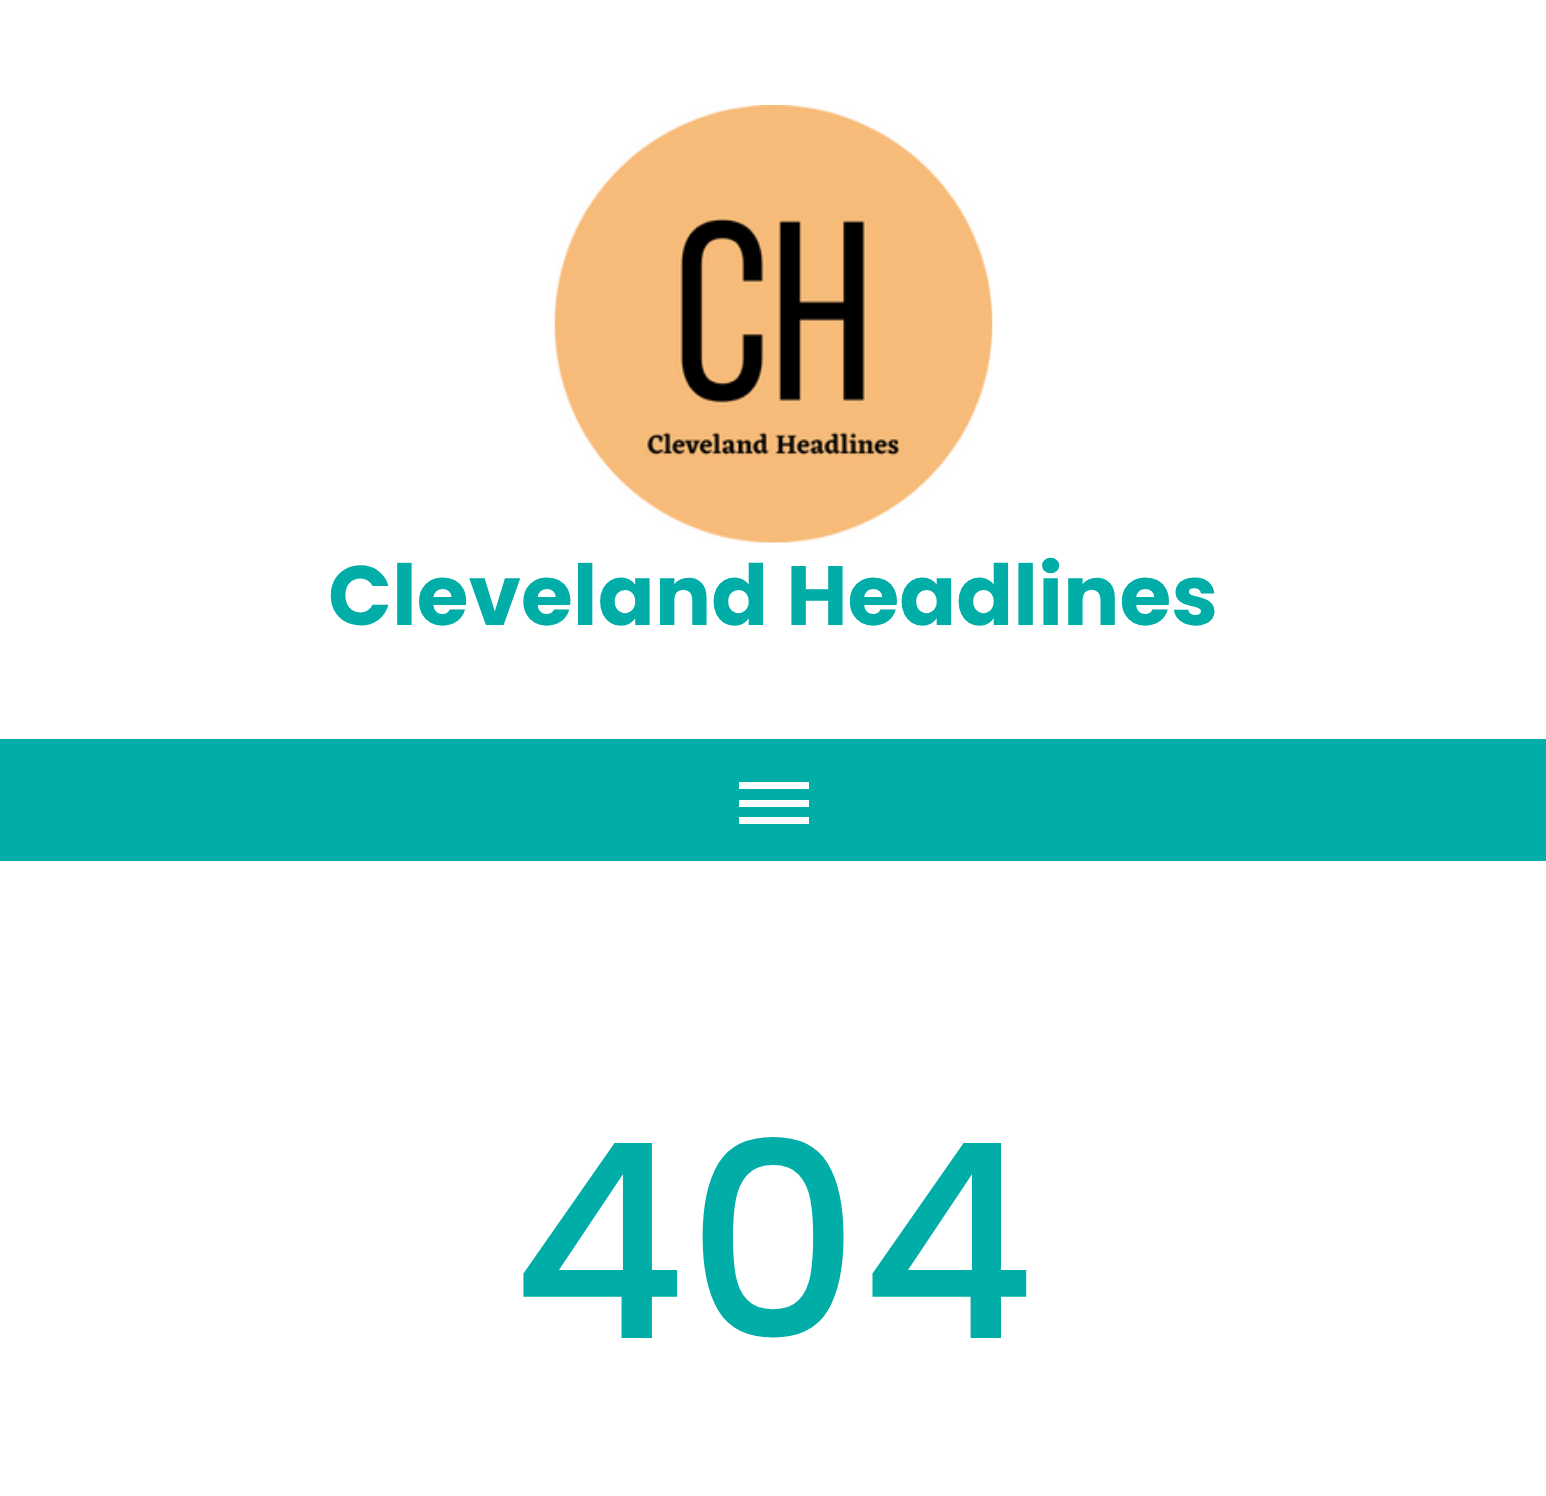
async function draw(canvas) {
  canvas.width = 1546
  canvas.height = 1496
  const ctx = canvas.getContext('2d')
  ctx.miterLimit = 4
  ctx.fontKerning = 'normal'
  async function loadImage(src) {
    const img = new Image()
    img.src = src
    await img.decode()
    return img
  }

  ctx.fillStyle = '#fff'
  ctx.fillRect(0, 0, 1546, 1496)
  ctx.drawImage(await loadImage('image0.png'), 554, 105, 439, 438)
  ctx.font = 'bold 84px Poppins'
  ctx.fillStyle = '#00ada7'
  ctx.fillText('Cleveland Headlines', 328, 625)
  ctx.fillRect(0, 739, 1546, 122)
  ctx.fillStyle = '#fff'
  ctx.fillRect(739, 800, 70, 7)
  ctx.fillRect(739, 782, 70, 7)
  ctx.fillRect(739, 817, 70, 7)
  ctx.font = '500 271px Poppins'
  ctx.fillStyle = '#00ada7'
  ctx.fillText('404', 511, 1338)
}

draw(document.querySelector('canvas'))
